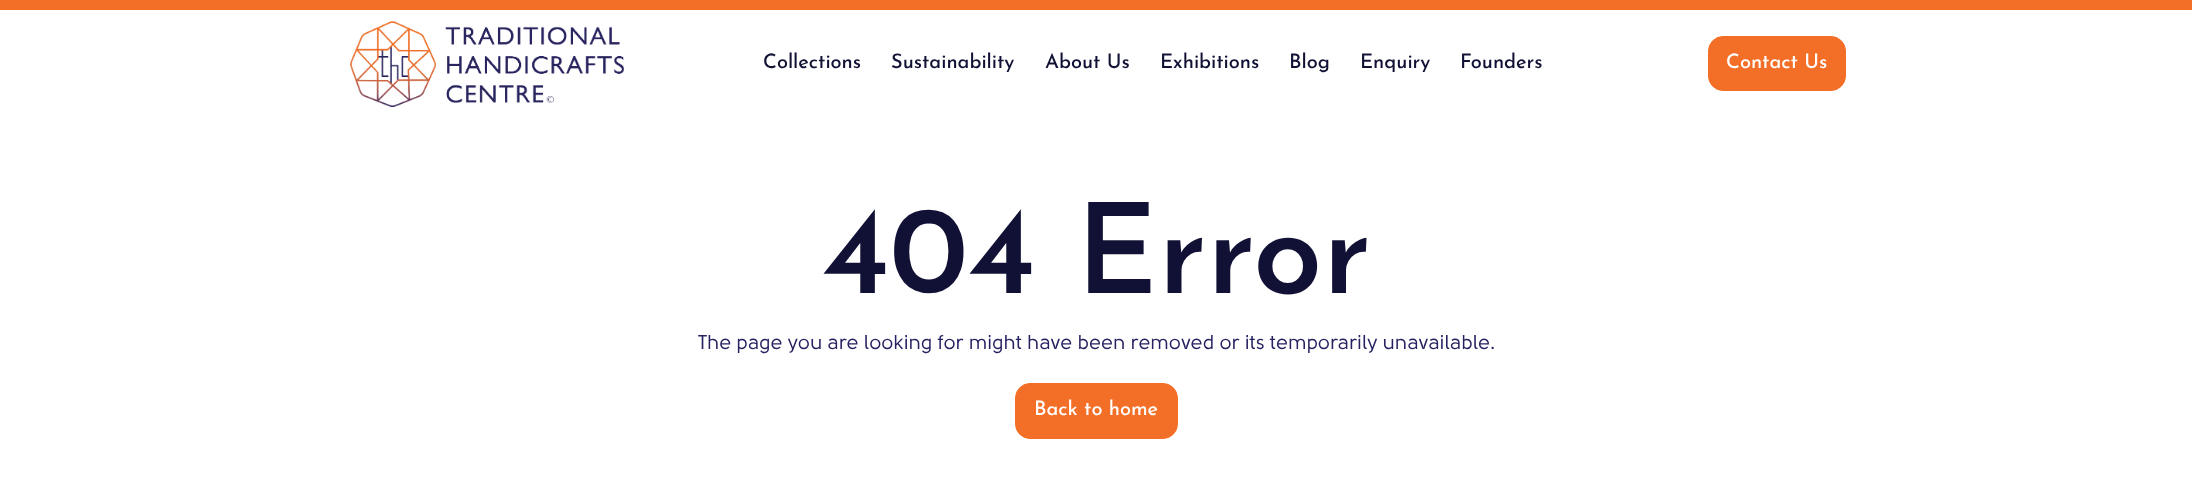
async function draw(canvas) {
  canvas.width = 2192
  canvas.height = 482
  const ctx = canvas.getContext('2d')
  ctx.miterLimit = 4
  ctx.fontKerning = 'normal'
  async function loadImage(src) {
    const img = new Image()
    img.src = src
    await img.decode()
    return img
  }

  ctx.fillStyle = '#fff'
  ctx.fillRect(0, 0, 2192, 482)
  ctx.fillStyle = '#f36e26'
  ctx.fillRect(0, 0, 2192, 10)
  ctx.drawImage(await loadImage('image0.png'), 350, 21, 274, 87)
  ctx.font = '500 20px Josefin Sans'
  ctx.fillStyle = '#111135'
  ctx.fillText('Collections', 763, 68)
  ctx.fillText('Sustainability', 891, 68)
  ctx.fillText('About Us', 1045, 68)
  ctx.fillText('Exhibitions', 1160, 68)
  ctx.fillText('Blog', 1289, 68)
  ctx.fillText('Enquiry', 1360, 68)
  ctx.fillText('Founders', 1460, 68)
  ctx.fillStyle = '#f36e26'
  ctx.beginPath()
  ctx.roundRect(1708.5, 36.5, 137, 54, 14.5)
  ctx.fill()
  ctx.strokeStyle = '#f36e26'
  ctx.stroke()
  ctx.fillStyle = '#fff'
  ctx.fillText('Contact Us', 1726, 68)
  ctx.font = '600 125px Josefin Sans'
  ctx.fillStyle = '#111135'
  ctx.fillText('404 Error', 822, 293)
  ctx.font = '20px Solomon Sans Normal'
  ctx.fillStyle = '#262262'
  ctx.fillText('The page you are looking for might have been removed or its temporarily unavailable.', 698, 349)
  ctx.fillStyle = '#f36e26'
  ctx.beginPath()
  ctx.roundRect(1015.5, 383.5, 162, 55, 14.5)
  ctx.fill()
  ctx.stroke()
  ctx.font = '500 20px Josefin Sans'
  ctx.fillStyle = '#fff'
  ctx.fillText('Back to home', 1034, 415)
}

draw(document.querySelector('canvas'))
